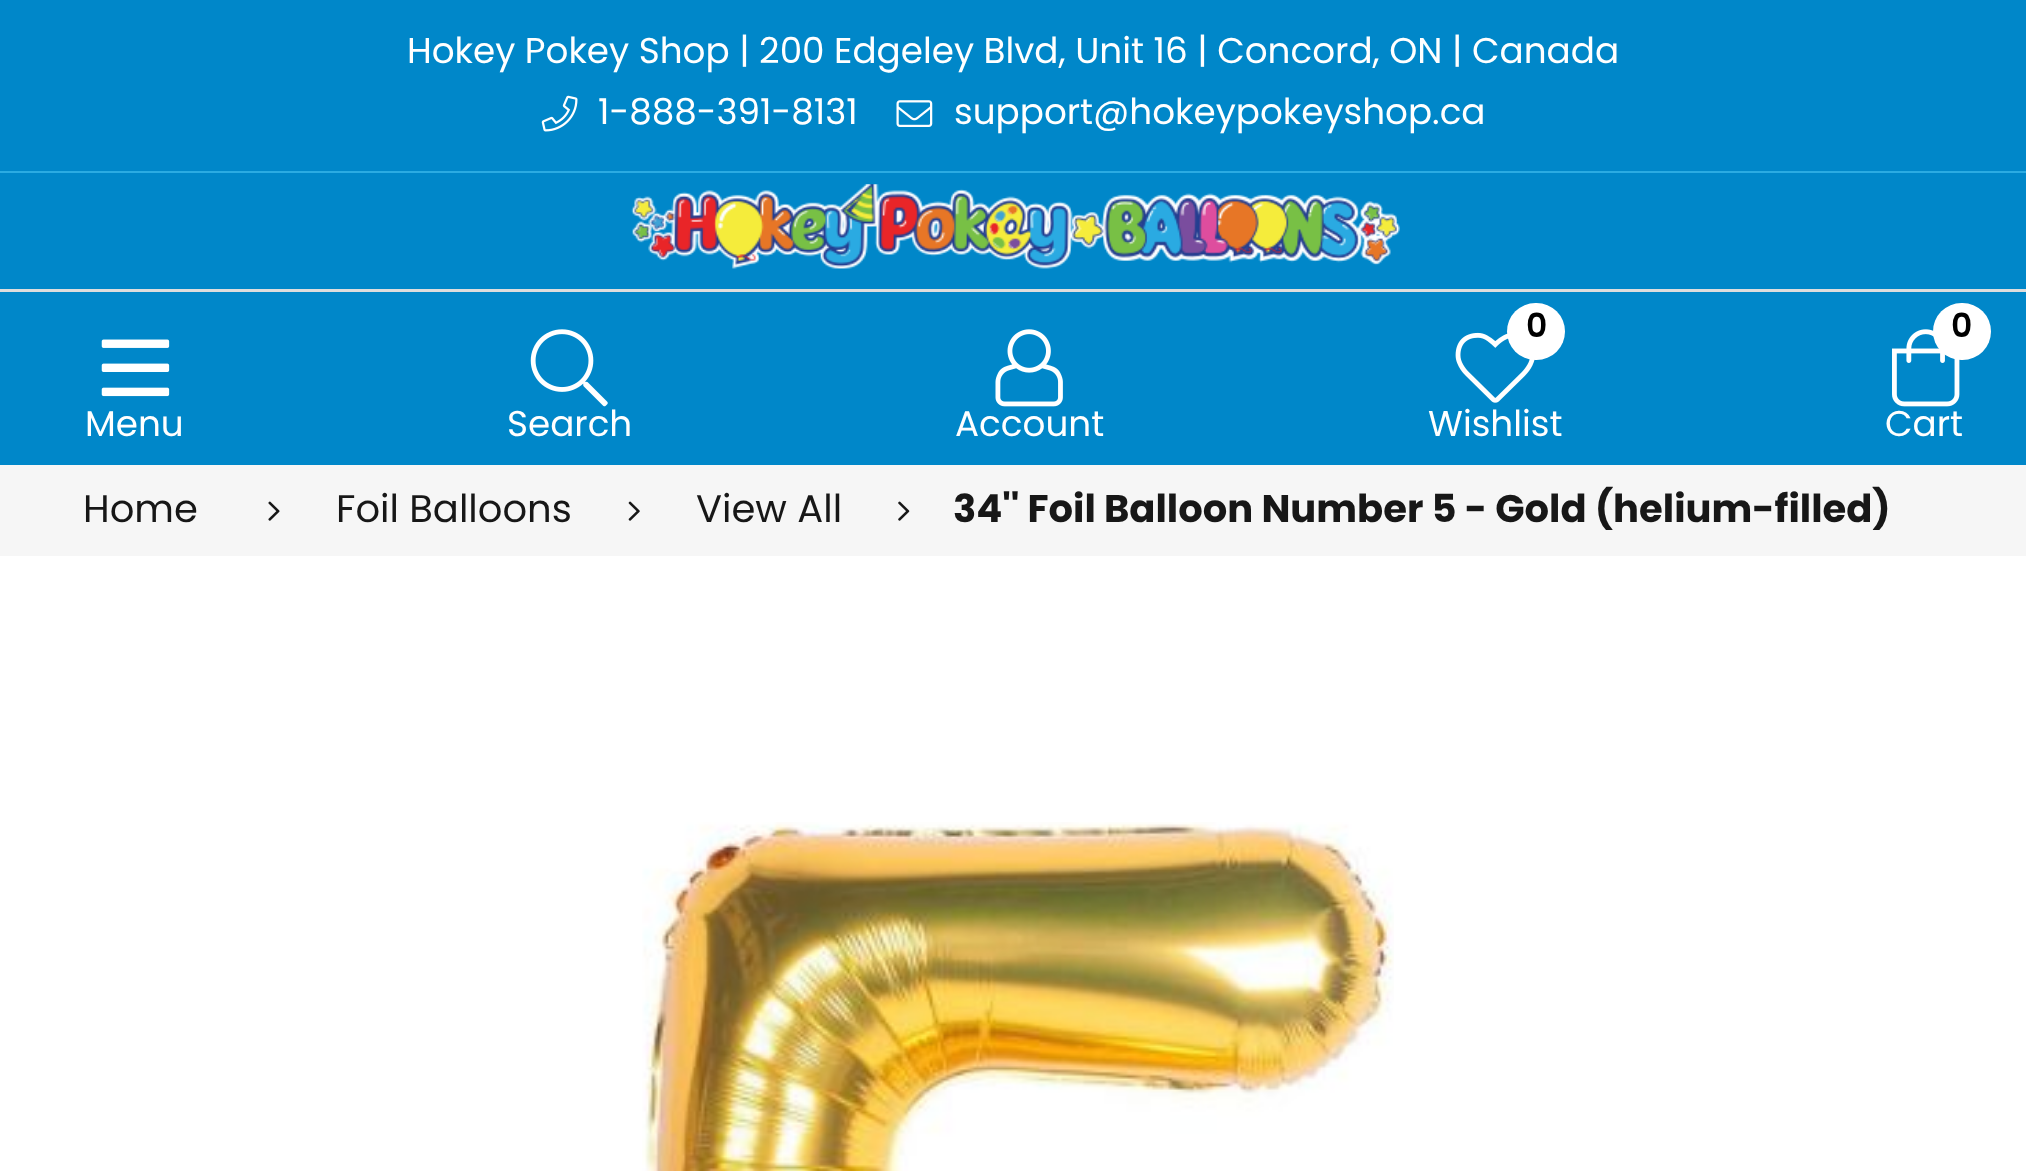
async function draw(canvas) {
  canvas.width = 2026
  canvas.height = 1171
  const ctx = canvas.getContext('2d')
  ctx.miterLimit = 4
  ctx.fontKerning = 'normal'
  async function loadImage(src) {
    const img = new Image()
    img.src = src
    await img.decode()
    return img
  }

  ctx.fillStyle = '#fff'
  ctx.fillRect(0, 0, 2026, 1171)
  ctx.fillStyle = '#0087c9'
  ctx.fillRect(0, 0, 2026, 171)
  ctx.fillStyle = '#2babe2'
  ctx.fillRect(0, 171, 2026, 2)
  ctx.font = '35.75px Poppins'
  ctx.fillStyle = '#fff'
  ctx.fillText('Hokey Pokey Shop | 200 Edgeley Blvd, Unit 16 | Concord, ON | Canada', 407, 63)
  ctx.drawImage(await loadImage('image0.png'), 541, 95, 37, 37)
  ctx.fillText('1-888-391-8131', 598, 124)
  ctx.drawImage(await loadImage('image1.png'), 896, 100, 37, 27)
  ctx.fillText('support@hokeypokeyshop.ca', 954, 124)
  ctx.fillStyle = '#0087c9'
  ctx.fillRect(0, 173, 2026, 292)
  ctx.fillStyle = '#ddd'
  ctx.fillRect(0, 289, 2026, 3)
  ctx.drawImage(await loadImage('image2.png'), 631, 184, 769, 85)
  ctx.drawImage(await loadImage('image3.png'), 101, 339, 69, 58)
  ctx.fillStyle = '#fff'
  ctx.fillText('Menu', 85, 436)
  ctx.drawImage(await loadImage('image4.png'), 530, 329, 78, 78)
  ctx.fillText('Search', 507, 436)
  ctx.drawImage(await loadImage('image5.png'), 995, 329, 68, 78)
  ctx.fillText('Account', 955, 436)
  ctx.drawImage(await loadImage('image6.png'), 1455, 332, 80, 71)
  ctx.beginPath()
  ctx.roundRect(1507, 303, 58, 57, 28.5)
  ctx.fill()
  ctx.font = '600 33px Poppins'
  ctx.fillStyle = '#000'
  ctx.fillText('0', 1526, 337)
  ctx.font = '35.75px Poppins'
  ctx.fillStyle = '#fff'
  ctx.fillText('Wishlist', 1428, 436)
  ctx.drawImage(await loadImage('image7.png'), 1892, 329, 68, 78)
  ctx.beginPath()
  ctx.roundRect(1933, 303, 58, 57, 28.5)
  ctx.fill()
  ctx.font = '600 33px Poppins'
  ctx.fillStyle = '#000'
  ctx.fillText('0', 1951, 337)
  ctx.font = '35.75px Poppins'
  ctx.fillStyle = '#fff'
  ctx.fillText('Cart', 1885, 436)
  ctx.fillStyle = '#f6f6f6'
  ctx.fillRect(0, 465, 2026, 91)
  ctx.font = '38.5px Poppins'
  ctx.fillStyle = '#171717'
  ctx.fillText('Home', 83, 522)
  ctx.drawImage(await loadImage('image8.png'), 268, 501, 12, 20)
  ctx.fillText('Foil Balloons', 336, 522)
  ctx.drawImage(await loadImage('image9.png'), 628, 501, 12, 20)
  ctx.fillText('View All', 696, 522)
  ctx.drawImage(await loadImage('image10.png'), 898, 501, 12, 20)
  ctx.font = 'bold 38.5px Poppins'
  ctx.fillText('34\'\' Foil Balloon Number 5 - Gold (helium-filled)', 953, 522)
  ctx.drawImage(await loadImage('image11.png'), 642, 822, 752, 349)
}

draw(document.querySelector('canvas'))
